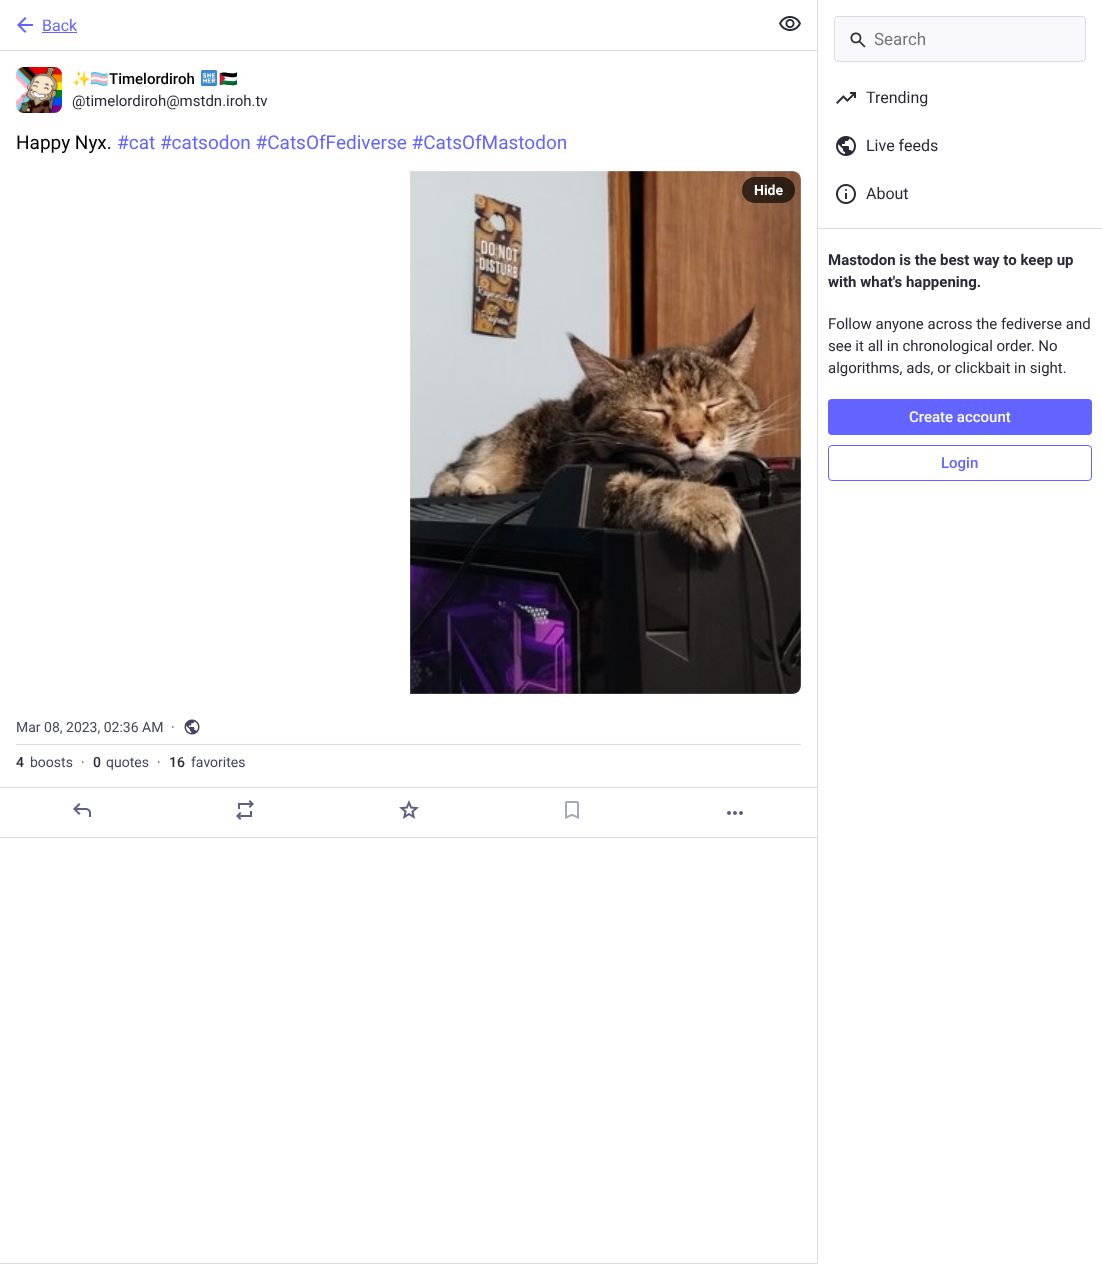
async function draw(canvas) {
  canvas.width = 1102
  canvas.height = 1264
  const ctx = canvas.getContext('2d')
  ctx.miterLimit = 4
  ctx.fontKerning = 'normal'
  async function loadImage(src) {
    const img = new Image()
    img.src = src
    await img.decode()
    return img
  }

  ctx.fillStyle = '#fff'
  ctx.fillRect(0, 0, 1102, 1264)
  ctx.fillStyle = '#d9d9e8'
  ctx.fillRect(0, 50, 817, 1)
  ctx.drawImage(await loadImage('image0.png'), 17, 17, 16, 16)
  ctx.font = '16px Roboto'
  ctx.fillStyle = '#6364ff'
  ctx.fillText('Back', 42, 31)
  ctx.fillRect(42, 32, 35, 1)
  ctx.drawImage(await loadImage('image1.png'), 779, 16, 22, 15)
  ctx.fillStyle = '#d9d9e8'
  ctx.fillRect(0, 1263, 817, 1)
  ctx.fillStyle = '#e8e6f0'
  ctx.beginPath()
  ctx.roundRect(16, 67, 46, 46, 8)
  ctx.fill()
  ctx.drawImage(await loadImage('image2.png'), 16, 67, 46, 46)
  ctx.font = '15px Noto Color Emoji'
  ctx.fillStyle = '#000'
  ctx.fillText('✨🏳️‍⚧️', 72, 84)
  ctx.font = '500 15px Roboto'
  ctx.fillText('Timelordiroh', 109, 84)
  ctx.drawImage(await loadImage('image3.png'), 201, 70, 16, 16)
  ctx.font = '15px Noto Color Emoji'
  ctx.fillText('🇵🇸', 219, 84)
  ctx.font = '15px Roboto'
  ctx.fillStyle = '#292938'
  ctx.fillText('@timelordiroh@mstdn.iroh.tv', 72, 106)
  ctx.font = '19px Roboto'
  ctx.fillStyle = '#000'
  ctx.fillText('Happy Nyx.', 16, 149)
  ctx.fillStyle = '#6364ff'
  ctx.fillText('#cat #catsodon #CatsOfFediverse #CatsOfMastodon', 117, 149)
  ctx.drawImage(await loadImage('image4.png'), 410, 171, 391, 523)
  ctx.beginPath()
  ctx.roundRect(410.5, 171.5, 390, 522, [0, 7.5, 7.5, 0])
  ctx.strokeStyle = '#fcf8ff26'
  ctx.stroke()
  ctx.fillStyle = '#000000a6'
  ctx.beginPath()
  ctx.roundRect(742, 177, 53, 26, 13)
  ctx.fill()
  ctx.font = 'bold 14px Roboto'
  ctx.fillStyle = '#fff'
  ctx.fillText('Hide', 754, 195)
  ctx.fillStyle = '#d9d9e8'
  ctx.fillRect(16, 744, 785, 1)
  ctx.font = '14px Roboto'
  ctx.fillStyle = '#45455f'
  ctx.fillText('Mar 08, 2023, 02:36 AM', 16, 732)
  ctx.fillText('·', 171, 732)
  ctx.drawImage(await loadImage('image5.png'), 184, 719, 16, 16)
  ctx.font = '500 14px Roboto'
  ctx.fillStyle = '#292938'
  ctx.fillText('4', 16, 767)
  ctx.font = '14px Roboto'
  ctx.fillStyle = '#45455f'
  ctx.fillText('boosts', 30, 767)
  ctx.fillText('·', 81, 767)
  ctx.font = '500 14px Roboto'
  ctx.fillStyle = '#292938'
  ctx.fillText('0', 93, 767)
  ctx.font = '14px Roboto'
  ctx.fillStyle = '#45455f'
  ctx.fillText('quotes', 106, 767)
  ctx.fillText('·', 157, 767)
  ctx.font = '500 14px Roboto'
  ctx.fillStyle = '#292938'
  ctx.fillText('16', 169, 767)
  ctx.font = '14px Roboto'
  ctx.fillStyle = '#45455f'
  ctx.fillText('favorites', 191, 767)
  ctx.fillStyle = '#d9d9e8'
  ctx.fillRect(0, 787, 817, 1)
  ctx.fillRect(0, 837, 817, 1)
  ctx.drawImage(await loadImage('image6.png'), 73, 803, 18, 14)
  ctx.drawImage(await loadImage('image7.png'), 236, 800, 18, 20)
  ctx.drawImage(await loadImage('image8.png'), 399, 800, 20, 19)
  ctx.drawImage(await loadImage('image9.png'), 565, 801, 14, 18)
  ctx.drawImage(await loadImage('image10.png'), 727, 811, 16, 4)
  ctx.fillRect(817, 0, 1, 1264)
  ctx.fillStyle = '#f9f9fb'
  ctx.beginPath()
  ctx.roundRect(834.5, 16.5, 251, 45, 3.5)
  ctx.fill()
  ctx.strokeStyle = '#d9d9e8'
  ctx.stroke()
  ctx.drawImage(await loadImage('image11.png'), 850, 32, 16, 16)
  ctx.font = '17px Roboto'
  ctx.fillStyle = '#757575'
  ctx.fillText('Search', 874, 45)
  ctx.drawImage(await loadImage('image12.png'), 836, 92, 20, 12)
  ctx.font = '16px Roboto'
  ctx.fillStyle = '#292938'
  ctx.fillText('Trending', 866, 103)
  ctx.drawImage(await loadImage('image13.png'), 836, 136, 20, 20)
  ctx.fillText('Live feeds', 866, 151)
  ctx.drawImage(await loadImage('image14.png'), 836, 184, 20, 20)
  ctx.fillText('About', 866, 199)
  ctx.fillStyle = '#d9d9e8'
  ctx.fillRect(818, 228, 284, 1)
  ctx.font = 'bold 15px Roboto'
  ctx.fillStyle = '#292938'
  ctx.fillText('Mastodon is the best way to keep up', 828, 265)
  ctx.fillText('with what\'s happening.', 828, 287)
  ctx.font = '15px Roboto'
  ctx.fillText('Follow anyone across the fediverse and', 828, 329)
  ctx.fillText('see it all in chronological order. No', 828, 351)
  ctx.fillText('algorithms, ads, or clickbait in sight.', 828, 373)
  ctx.fillStyle = '#6364ff'
  ctx.beginPath()
  ctx.roundRect(828, 399, 264, 36, 4)
  ctx.fill()
  ctx.font = '500 15px Roboto'
  ctx.fillStyle = '#fff'
  ctx.fillText('Create account', 909, 422)
  ctx.beginPath()
  ctx.roundRect(828.5, 445.5, 263, 35, 3.5)
  ctx.strokeStyle = '#6364ff'
  ctx.stroke()
  ctx.fillStyle = '#6364ff'
  ctx.fillText('Login', 941, 468)
}

draw(document.querySelector('canvas'))
